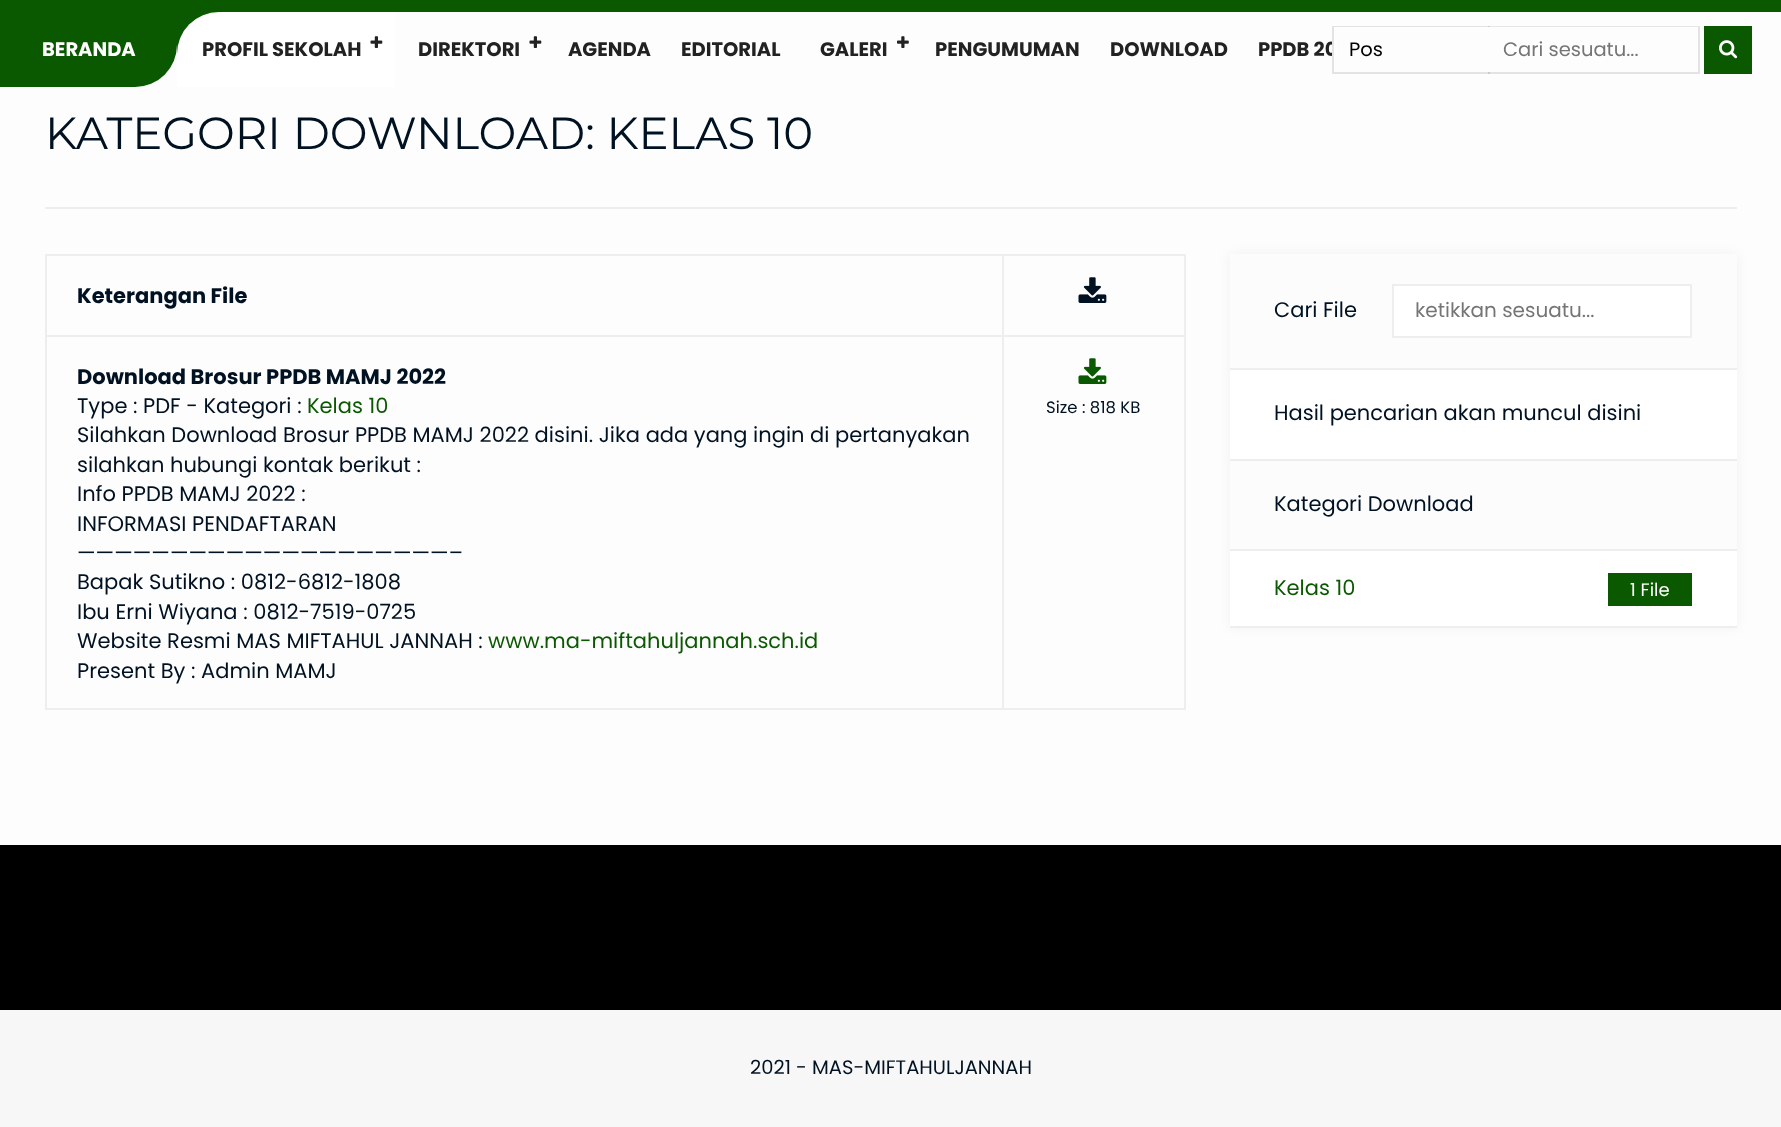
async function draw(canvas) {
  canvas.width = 1781
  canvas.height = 1127
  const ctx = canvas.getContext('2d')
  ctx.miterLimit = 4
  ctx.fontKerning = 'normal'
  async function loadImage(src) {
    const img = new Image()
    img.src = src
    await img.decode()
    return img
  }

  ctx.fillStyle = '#fdfdfd'
  ctx.fillRect(0, 0, 1781, 1127)
  ctx.fillStyle = '#0a5900'
  ctx.fillRect(0, 0, 1781, 12)
  ctx.beginPath()
  ctx.roundRect(0, 12, 177, 75, [0, 0, 42, 0])
  ctx.fill()
  ctx.font = 'bold 19.5px Poppins'
  ctx.fillStyle = '#fff'
  ctx.fillText('BERANDA', 42, 56)
  ctx.fillStyle = '#0a5900'
  ctx.fillRect(177, 12, 42, 42)
  ctx.fillStyle = '#fff'
  ctx.beginPath()
  ctx.roundRect(177, 12, 218, 75, [42, 0, 0, 0])
  ctx.fill()
  ctx.fillStyle = '#222'
  ctx.fillText('PROFIL SEKOLAH', 202, 56)
  ctx.drawImage(await loadImage('image0.png'), 370, 36, 13, 12)
  ctx.fillText('DIREKTORI', 418, 56)
  ctx.drawImage(await loadImage('image0.png'), 529, 36, 13, 12)
  ctx.fillText('AGENDA', 568, 56)
  ctx.fillText('EDITORIAL', 681, 56)
  ctx.fillText('GALERI', 820, 56)
  ctx.drawImage(await loadImage('image1.png'), 897, 36, 12, 12)
  ctx.fillText('PENGUMUMAN', 935, 56)
  ctx.fillText('DOWNLOAD', 1110, 56)
  ctx.fillText('PPDB 20', 1258, 56)
  ctx.fillStyle = '#fff'
  ctx.fillRect(1332, 41, 5, 15)
  ctx.fillStyle = '#e6e6e6'
  ctx.beginPath()
  ctx.moveTo(1488, 26)
  ctx.lineTo(1700, 26)
  ctx.lineTo(1698, 27)
  ctx.lineTo(1488, 27)
  ctx.closePath()
  ctx.fill()
  ctx.fillStyle = '#0000001a'
  ctx.beginPath()
  ctx.moveTo(1332, 26)
  ctx.lineTo(1490, 26)
  ctx.lineTo(1490, 27)
  ctx.lineTo(1334, 27)
  ctx.closePath()
  ctx.fill()
  ctx.beginPath()
  ctx.moveTo(1700, 26)
  ctx.lineTo(1700, 74)
  ctx.lineTo(1698, 72)
  ctx.lineTo(1698, 27)
  ctx.closePath()
  ctx.fill()
  ctx.beginPath()
  ctx.moveTo(1700, 74)
  ctx.lineTo(1488, 74)
  ctx.lineTo(1488, 72)
  ctx.lineTo(1698, 72)
  ctx.closePath()
  ctx.fill()
  ctx.beginPath()
  ctx.moveTo(1490, 74)
  ctx.lineTo(1332, 74)
  ctx.lineTo(1334, 72)
  ctx.lineTo(1490, 72)
  ctx.closePath()
  ctx.fill()
  ctx.beginPath()
  ctx.moveTo(1332, 74)
  ctx.lineTo(1332, 26)
  ctx.lineTo(1334, 27)
  ctx.lineTo(1334, 72)
  ctx.closePath()
  ctx.fill()
  ctx.font = '19.5px Poppins'
  ctx.fillStyle = '#000'
  ctx.fillText('Pos', 1349, 56)
  ctx.fillStyle = '#757575'
  ctx.fillText('Cari sesuatu...', 1503, 56)
  ctx.fillStyle = '#0a5900'
  ctx.fillRect(1704, 26, 48, 48)
  ctx.drawImage(await loadImage('image2.png'), 1719, 40, 19, 19)
  ctx.fillStyle = '#eee'
  ctx.fillRect(45, 207, 1692, 2)
  ctx.font = '45px Montserrat'
  ctx.fillStyle = '#012'
  ctx.fillText('KATEGORI DOWNLOAD: KELAS 10', 45, 149)
  ctx.fillStyle = '#eee'
  ctx.fillRect(1002, 254, 183, 2)
  ctx.fillRect(1002, 335, 183, 2)
  ctx.fillRect(1184, 335, 2, 375)
  ctx.fillRect(1002, 708, 183, 2)
  ctx.fillRect(1002, 335, 2, 375)
  ctx.fillRect(45, 335, 959, 2)
  ctx.fillRect(1002, 254, 2, 82)
  ctx.fillRect(45, 254, 959, 2)
  ctx.fillRect(45, 708, 959, 2)
  ctx.fillRect(45, 335, 2, 375)
  ctx.fillRect(45, 254, 2, 82)
  ctx.font = 'bold 21px Poppins'
  ctx.fillStyle = '#012'
  ctx.fillText('Keterangan File', 77, 303)
  ctx.fillStyle = '#eee'
  ctx.fillRect(1184, 254, 2, 82)
  ctx.drawImage(await loadImage('image3.png'), 1078, 277, 29, 26)
  ctx.fillStyle = '#012'
  ctx.fillText('Download Brosur PPDB MAMJ 2022', 77, 384)
  ctx.font = '21px Poppins'
  ctx.fillText('Type : PDF - Kategori :', 77, 413)
  ctx.fillStyle = '#0a5900'
  ctx.fillText('Kelas 10', 307, 413)
  ctx.fillStyle = '#012'
  ctx.fillText('Silahkan Download Brosur PPDB MAMJ 2022 disini. Jika ada yang ingin di pertanyakan', 77, 442)
  ctx.fillText('silahkan hubungi kontak berikut :', 77, 472)
  ctx.fillText('Info PPDB MAMJ 2022 :', 77, 501)
  ctx.fillText('INFORMASI PENDAFTARAN', 77, 531)
  ctx.fillText('————————————————————–', 77, 560)
  ctx.fillText('Bapak Sutikno : 0812-6812-1808', 77, 589)
  ctx.fillText('Ibu Erni Wiyana : 0812-7519-0725', 77, 619)
  ctx.fillText('Website Resmi MAS MIFTAHUL JANNAH :', 77, 648)
  ctx.fillStyle = '#0a5900'
  ctx.fillText('www.ma-miftahuljannah.sch.id', 488, 648)
  ctx.fillStyle = '#012'
  ctx.fillText('Present By : Admin MAMJ', 77, 678)
  ctx.drawImage(await loadImage('image4.png'), 1078, 358, 29, 26)
  ctx.font = '16.5px Poppins'
  ctx.fillText('Size : 818 KB', 1046, 413)
  ctx.fillStyle = '#0000000d'
  ctx.filter = 'blur(6px)'
  ctx.beginPath()
  ctx.rect(1230, 254, 507, 373)
  ctx.fill()
  ctx.filter = 'none'
  ctx.fillStyle = '#fff'
  ctx.fillRect(1230, 370, 507, 256)
  ctx.fillStyle = '#fcfcfc'
  ctx.fillRect(1230, 254, 507, 114)
  ctx.fillStyle = '#eee'
  ctx.fillRect(1230, 368, 507, 2)
  ctx.font = '21px Poppins'
  ctx.fillStyle = '#012'
  ctx.fillText('Cari File', 1274, 317)
  ctx.fillStyle = '#fff'
  ctx.beginPath()
  ctx.rect(1393, 285, 298, 52)
  ctx.fill()
  ctx.strokeStyle = '#eee'
  ctx.lineWidth = 2
  ctx.stroke()
  ctx.font = '20px Poppins'
  ctx.fillStyle = '#757575'
  ctx.fillText('ketikkan sesuatu...', 1415, 317)
  ctx.font = '21px Poppins'
  ctx.fillStyle = '#012'
  ctx.fillText('Hasil pencarian akan muncul disini', 1274, 420)
  ctx.fillStyle = '#fcfcfc'
  ctx.fillRect(1230, 461, 507, 88)
  ctx.fillStyle = '#eee'
  ctx.fillRect(1230, 459, 507, 2)
  ctx.fillRect(1230, 549, 507, 2)
  ctx.fillStyle = '#012'
  ctx.fillText('Kategori Download', 1274, 511)
  ctx.fillStyle = '#eee'
  ctx.fillRect(1230, 626, 507, 2)
  ctx.fillStyle = '#0a5900'
  ctx.fillText('Kelas 10', 1274, 595)
  ctx.fillRect(1608, 573, 84, 33)
  ctx.font = '18px Poppins'
  ctx.fillStyle = '#fff'
  ctx.fillText('1 File', 1630, 596)
  ctx.fillStyle = '#000'
  ctx.fillRect(0, 845, 1781, 165)
  ctx.fillStyle = '#f7f7f7'
  ctx.fillRect(0, 1010, 1781, 117)
  ctx.font = '19.5px Poppins'
  ctx.fillStyle = '#012'
  ctx.fillText('2021 - MAS-MIFTAHULJANNAH', 750, 1074)
}

draw(document.querySelector('canvas'))
